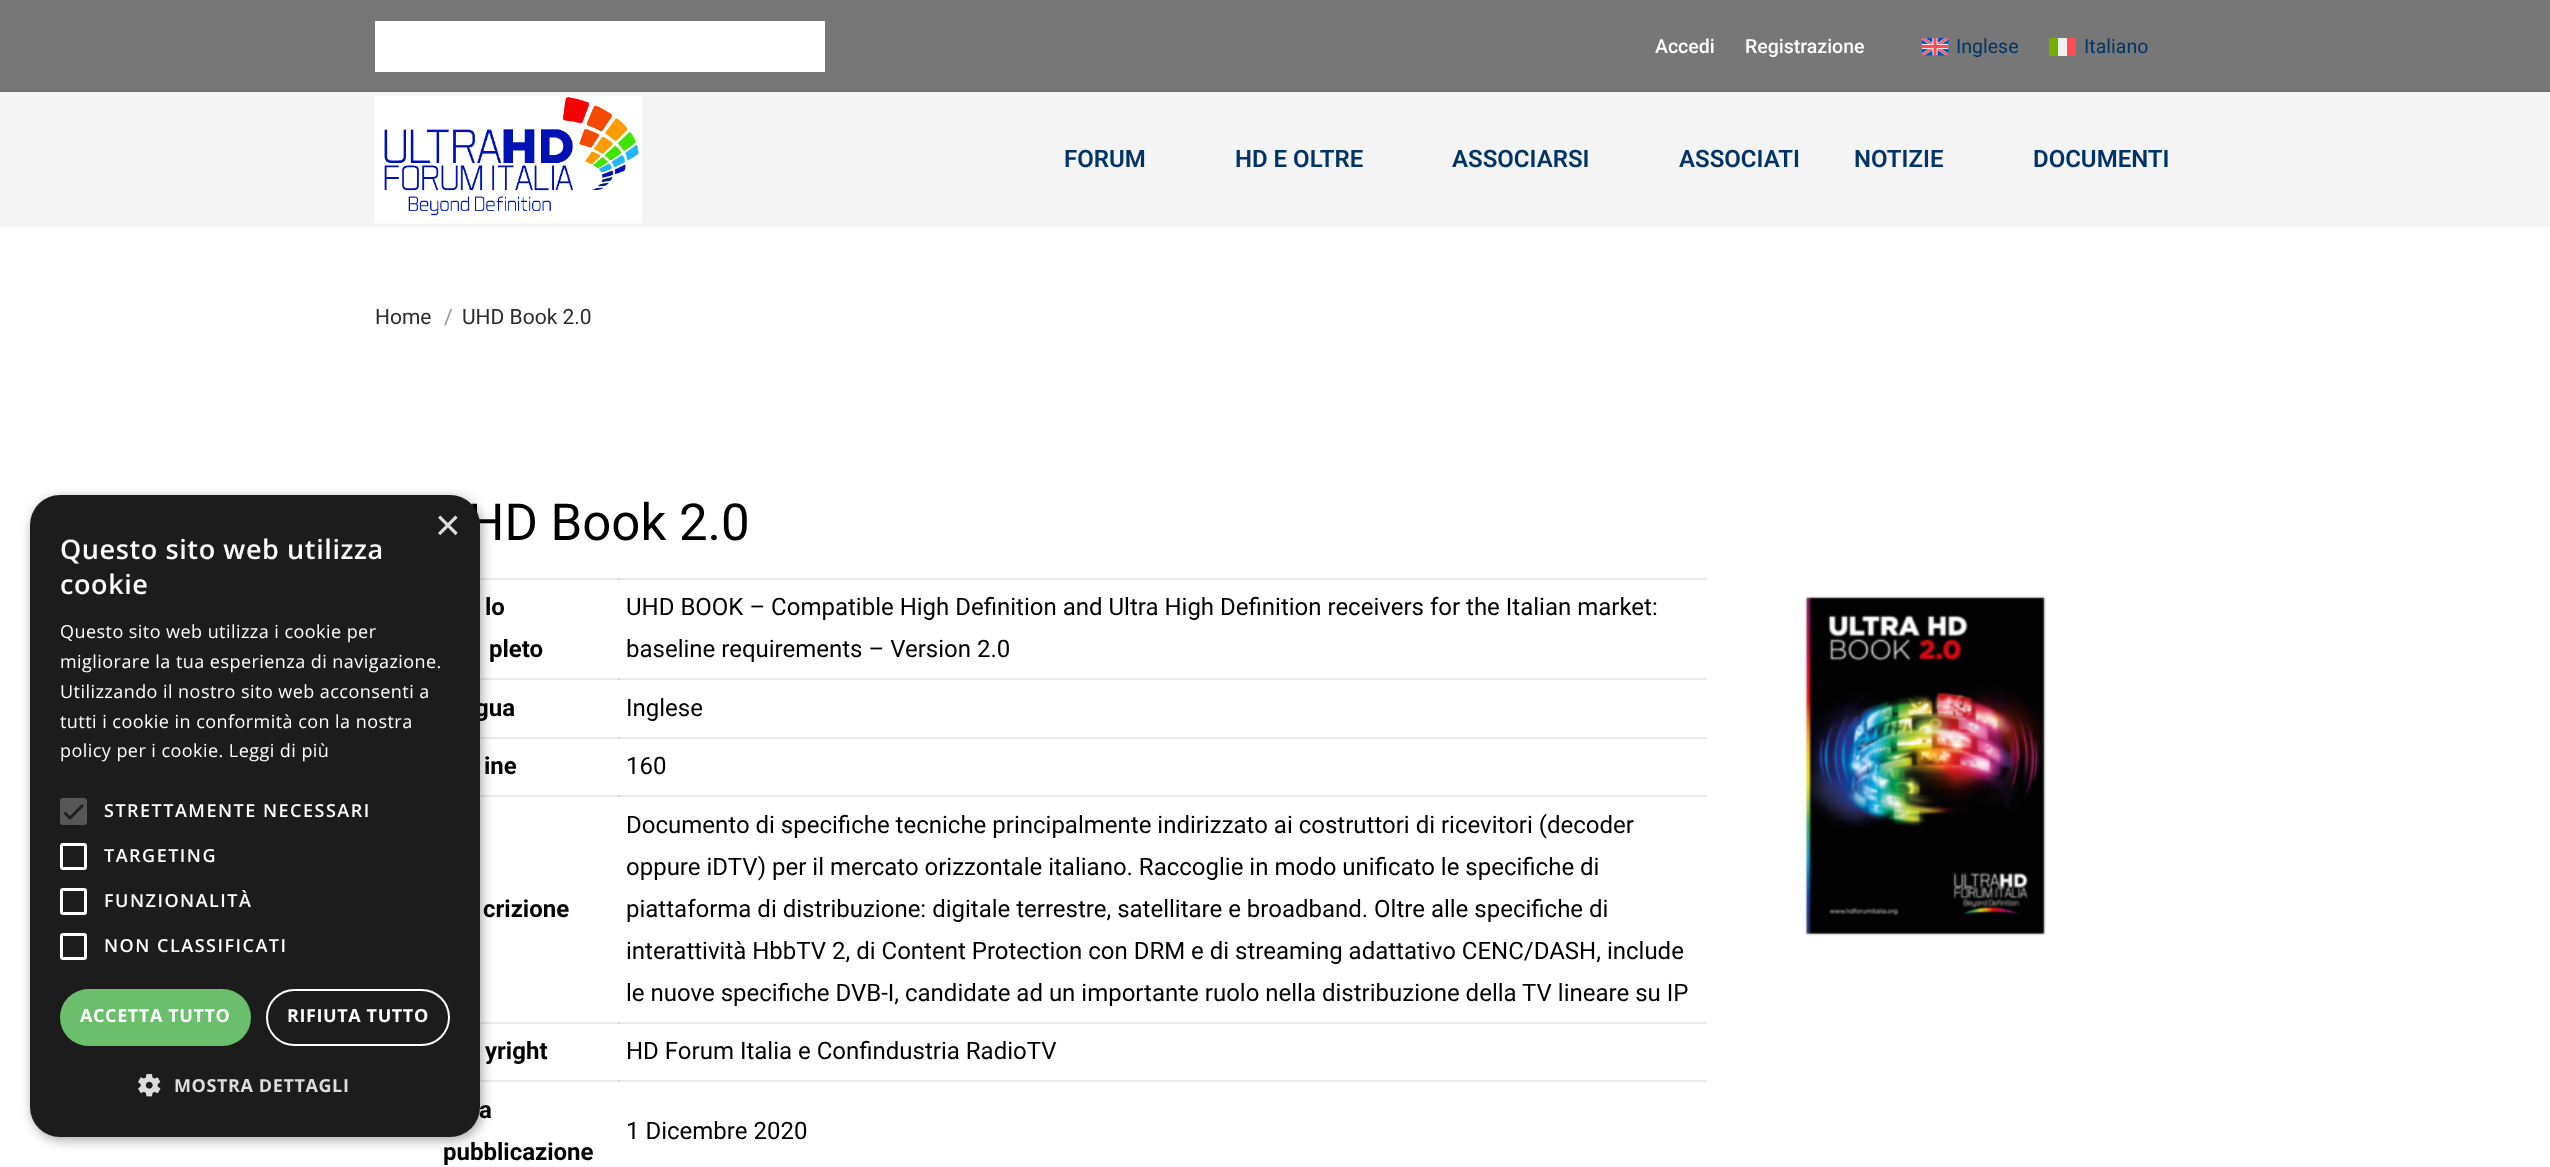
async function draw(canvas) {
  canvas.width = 2550
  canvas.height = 1167
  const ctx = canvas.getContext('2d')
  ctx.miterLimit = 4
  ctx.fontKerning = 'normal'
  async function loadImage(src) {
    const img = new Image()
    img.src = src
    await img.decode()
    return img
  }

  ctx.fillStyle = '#fff'
  ctx.fillRect(0, 0, 2550, 1167)
  ctx.fillStyle = '#ebebeb'
  ctx.fillRect(480, 578, 1227, 2)
  ctx.fillRect(480, 678, 1227, 2)
  ctx.fillRect(480, 737, 1227, 2)
  ctx.fillRect(480, 795, 1227, 2)
  ctx.fillRect(480, 1022, 1227, 2)
  ctx.fillRect(480, 1080, 1227, 2)
  ctx.fillStyle = '#00000059'
  ctx.filter = 'blur(6px)'
  ctx.beginPath()
  ctx.roundRect(32, 498, 450, 642, 30)
  ctx.fill()
  ctx.filter = 'none'
  ctx.font = '51px Roboto'
  ctx.fillStyle = '#000'
  ctx.fillText('HD Book 2.0', 468, 540)
  ctx.font = 'bold 24px Roboto'
  ctx.fillText('gua', 475, 716)
  ctx.fillText('a', 479, 1118)
  ctx.fillStyle = '#1c1c1c'
  ctx.beginPath()
  ctx.roundRect(30, 495, 450, 642, 30)
  ctx.fill()
  ctx.font = '44px Liberation Sans'
  ctx.fillStyle = '#ddd'
  ctx.fillText('×', 435, 540)
  ctx.letterSpacing = '0.6px'
  ctx.font = '600 27px Open Sans'
  ctx.fillStyle = '#fff'
  ctx.fillText('Questo sito web utilizza', 60, 559)
  ctx.fillText('cookie', 60, 594)
  ctx.letterSpacing = '0.45px'
  ctx.font = '18px Open Sans'
  ctx.fillText('Questo sito web utilizza i cookie per', 60, 638)
  ctx.fillText('migliorare la tua esperienza di navigazione.', 60, 668)
  ctx.fillText('Utilizzando il nostro sito web acconsenti a', 60, 698)
  ctx.fillText('tutti i cookie in conformità con la nostra', 60, 728)
  ctx.fillText('policy per i cookie. Leggi di più', 60, 757)
  ctx.fillStyle = '#575757'
  ctx.beginPath()
  ctx.roundRect(60, 798, 27, 27, 3)
  ctx.fill()
  ctx.beginPath()
  ctx.moveTo(64.5, 812.5)
  ctx.lineTo(70, 818)
  ctx.lineTo(83, 805)
  ctx.strokeStyle = '#1c1c1c'
  ctx.lineWidth = 2.7
  ctx.stroke()
  ctx.letterSpacing = '1.5px'
  ctx.font = '600 18px Open Sans'
  ctx.fillStyle = '#fff'
  ctx.fillText('STRETTAMENTE NECESSARI', 104, 817)
  ctx.beginPath()
  ctx.roundRect(61.5, 844.5, 24, 24, 1.5)
  ctx.strokeStyle = '#fff'
  ctx.lineWidth = 3
  ctx.stroke()
  ctx.fillText('TARGETING', 104, 862)
  ctx.beginPath()
  ctx.roundRect(61.5, 889.5, 24, 24, 1.5)
  ctx.stroke()
  ctx.fillText('FUNZIONALITÀ', 104, 907)
  ctx.beginPath()
  ctx.roundRect(61.5, 934.5, 24, 24, 1.5)
  ctx.stroke()
  ctx.fillText('NON CLASSIFICATI', 104, 952)
  ctx.fillStyle = '#6bbe6b'
  ctx.beginPath()
  ctx.roundRect(60, 989, 191, 57, 28.5)
  ctx.fill()
  ctx.letterSpacing = '0.6px'
  ctx.font = 'bold 18px Open Sans'
  ctx.fillStyle = '#fff'
  ctx.fillText('ACCETTA TUTTO', 80, 1022)
  ctx.beginPath()
  ctx.roundRect(267, 990, 182, 55, 27.5)
  ctx.lineWidth = 2
  ctx.stroke()
  ctx.fillText('RIFIUTA TUTTO', 287, 1022)
  ctx.drawImage(await loadImage('image0.png'), 138, 1074, 23, 23)
  ctx.fillStyle = '#ddd'
  ctx.fillText('MOSTRA DETTAGLI', 174, 1092)
  ctx.fillStyle = '#f4f4f4'
  ctx.fillRect(0, 92, 2550, 135)
  ctx.fillStyle = '#777'
  ctx.fillRect(0, 0, 2550, 90)
  ctx.fillStyle = '#fff'
  ctx.fillRect(375, 21, 450, 51)
  ctx.letterSpacing = '0px'
  ctx.font = '500 19.5px Roboto'
  ctx.fillText('Accedi', 1655, 53)
  ctx.fillText('Registrazione', 1745, 53)
  ctx.drawImage(await loadImage('image1.png'), 1922, 38, 27, 18)
  ctx.font = '19.5px Roboto'
  ctx.fillStyle = '#003466'
  ctx.fillText('Inglese', 1956, 53)
  ctx.fillStyle = '#73af00'
  ctx.fillRect(2049, 38, 9, 18)
  ctx.fillStyle = '#f0f0f0'
  ctx.fillRect(2058, 38, 9, 18)
  ctx.fillStyle = '#ff4b55'
  ctx.fillRect(2067, 38, 9, 18)
  ctx.fillStyle = '#003466'
  ctx.fillText('Italiano', 2084, 53)
  ctx.fillStyle = '#707070'
  ctx.fillRect(0, 90, 2550, 2)
  ctx.drawImage(await loadImage('image2.png'), 375, 96, 267, 128)
  ctx.font = '600 24px Roboto'
  ctx.fillStyle = '#003466'
  ctx.fillText('FORUM', 1064, 167)
  ctx.fillText('HD E OLTRE', 1235, 167)
  ctx.fillText('ASSOCIARSI', 1452, 167)
  ctx.fillText('ASSOCIATI', 1679, 167)
  ctx.fillText('NOTIZIE', 1854, 167)
  ctx.fillText('DOCUMENTI', 2033, 167)
  ctx.font = '21px Roboto'
  ctx.fillStyle = '#2d2c2c'
  ctx.fillText('Home', 375, 324)
  ctx.fillStyle = '#969696'
  ctx.fillText('/', 444, 324)
  ctx.fillStyle = '#2d2c2c'
  ctx.fillText('UHD Book 2.0', 462, 324)
  ctx.font = 'bold 24px Roboto'
  ctx.fillStyle = '#000'
  ctx.fillText('lo', 485, 615)
  ctx.fillText('pleto', 489, 657)
  ctx.fillStyle = '#d8d8d8'
  ctx.fillRect(618, 578, 2, 2)
  ctx.font = '24px Roboto'
  ctx.fillStyle = '#000'
  ctx.fillText('UHD BOOK – Compatible High Definition and Ultra High Definition receivers for the Italian market:', 626, 615)
  ctx.fillText('baseline requirements – Version 2.0', 626, 657)
  ctx.fillStyle = '#d8d8d8'
  ctx.fillRect(618, 678, 2, 2)
  ctx.fillStyle = '#000'
  ctx.fillText('Inglese', 626, 716)
  ctx.font = 'bold 24px Roboto'
  ctx.fillText('ine', 484, 774)
  ctx.fillStyle = '#d8d8d8'
  ctx.fillRect(618, 737, 2, 2)
  ctx.font = '24px Roboto'
  ctx.fillStyle = '#000'
  ctx.fillText('160', 626, 774)
  ctx.font = 'bold 24px Roboto'
  ctx.fillText('crizione', 483, 917)
  ctx.fillStyle = '#d8d8d8'
  ctx.fillRect(618, 795, 2, 2)
  ctx.font = '24px Roboto'
  ctx.fillStyle = '#000'
  ctx.fillText('Documento di specifiche tecniche principalmente indirizzato ai costruttori di ricevitori (decoder', 626, 833)
  ctx.fillText('oppure iDTV) per il mercato orizzontale italiano. Raccoglie in modo unificato le specifiche di', 626, 875)
  ctx.fillText('piattaforma di distribuzione: digitale terrestre, satellitare e broadband. Oltre alle specifiche di', 626, 917)
  ctx.fillText('interattività HbbTV 2, di Content Protection con DRM e di streaming adattativo CENC/DASH, include', 626, 959)
  ctx.fillText('le nuove specifiche DVB-I, candidate ad un importante ruolo nella distribuzione della TV lineare su IP', 626, 1001)
  ctx.font = 'bold 24px Roboto'
  ctx.fillText('yright', 485, 1059)
  ctx.fillStyle = '#d8d8d8'
  ctx.fillRect(618, 1022, 2, 2)
  ctx.font = '24px Roboto'
  ctx.fillStyle = '#000'
  ctx.fillText('HD Forum Italia e Confindustria RadioTV', 626, 1059)
  ctx.font = 'bold 24px Roboto'
  ctx.fillText('pubblicazione', 443, 1160)
  ctx.fillStyle = '#d8d8d8'
  ctx.fillRect(618, 1080, 2, 2)
  ctx.font = '24px Roboto'
  ctx.fillStyle = '#000'
  ctx.fillText('1 Dicembre 2020', 626, 1139)
  ctx.drawImage(await loadImage('image3.png'), 1805, 596, 241, 340)
}

draw(document.querySelector('canvas'))
